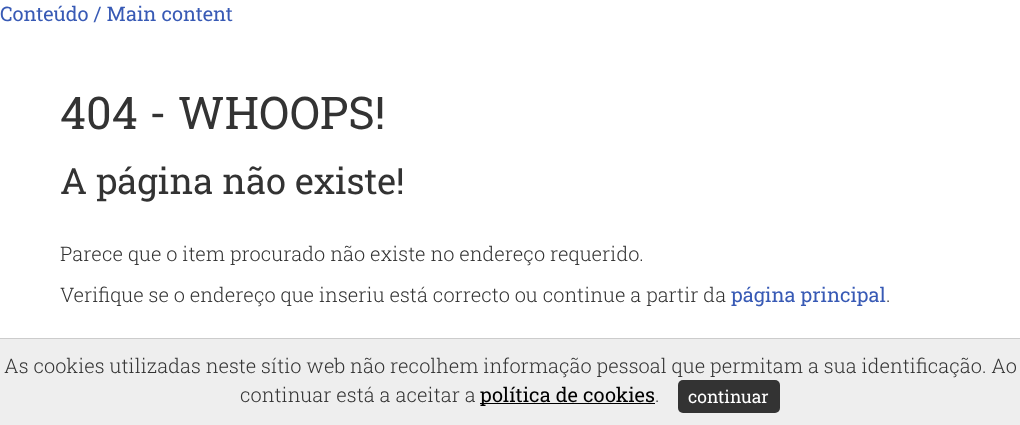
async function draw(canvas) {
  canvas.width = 1020
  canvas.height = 425
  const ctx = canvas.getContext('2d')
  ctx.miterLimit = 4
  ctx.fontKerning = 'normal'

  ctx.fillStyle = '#fff'
  ctx.fillRect(0, 0, 1020, 425)
  ctx.font = '20px Roboto Slab'
  ctx.fillStyle = '#385ab5'
  ctx.fillText('Conteúdo / Main content', 0, 21)
  ctx.font = '45px Roboto Slab'
  ctx.fillStyle = '#333'
  ctx.fillText('404 - WHOOPS!', 60, 129)
  ctx.font = '36.25px Roboto Slab'
  ctx.fillText('A página não existe!', 60, 194)
  ctx.font = '300 20px Roboto Slab'
  ctx.fillText('Parece que o item procurado não existe no endereço requerido.', 60, 261)
  ctx.fillText('Verifique se o endereço que inseriu está correcto ou continue a partir da', 60, 302)
  ctx.font = '20px Roboto Slab'
  ctx.fillStyle = '#385ab5'
  ctx.fillText('página principal', 731, 302)
  ctx.font = '300 20px Roboto Slab'
  ctx.fillStyle = '#333'
  ctx.fillText('.', 886, 302)
  ctx.fillStyle = '#eee'
  ctx.fillRect(0, 339, 1020, 86)
  ctx.fillStyle = '#ccc'
  ctx.fillRect(0, 338, 1020, 1)
  ctx.fillStyle = '#333'
  ctx.fillText('As cookies utilizadas neste sítio web não recolhem informação pessoal que permitam a sua identificação. Ao', 4, 373)
  ctx.fillText('continuar está a aceitar a', 240, 402)
  ctx.fillStyle = '#000'
  ctx.fillRect(480, 403, 175, 1)
  ctx.font = '20px Roboto Slab'
  ctx.fillText('política de cookies', 480, 402)
  ctx.font = '300 20px Roboto Slab'
  ctx.fillStyle = '#333'
  ctx.fillText('.', 655, 402)
  ctx.beginPath()
  ctx.roundRect(678, 380, 102, 33, 5)
  ctx.fill()
  ctx.font = '17.5px Roboto Slab'
  ctx.fillStyle = '#fff'
  ctx.fillText('continuar', 688, 403)
}

draw(document.querySelector('canvas'))
